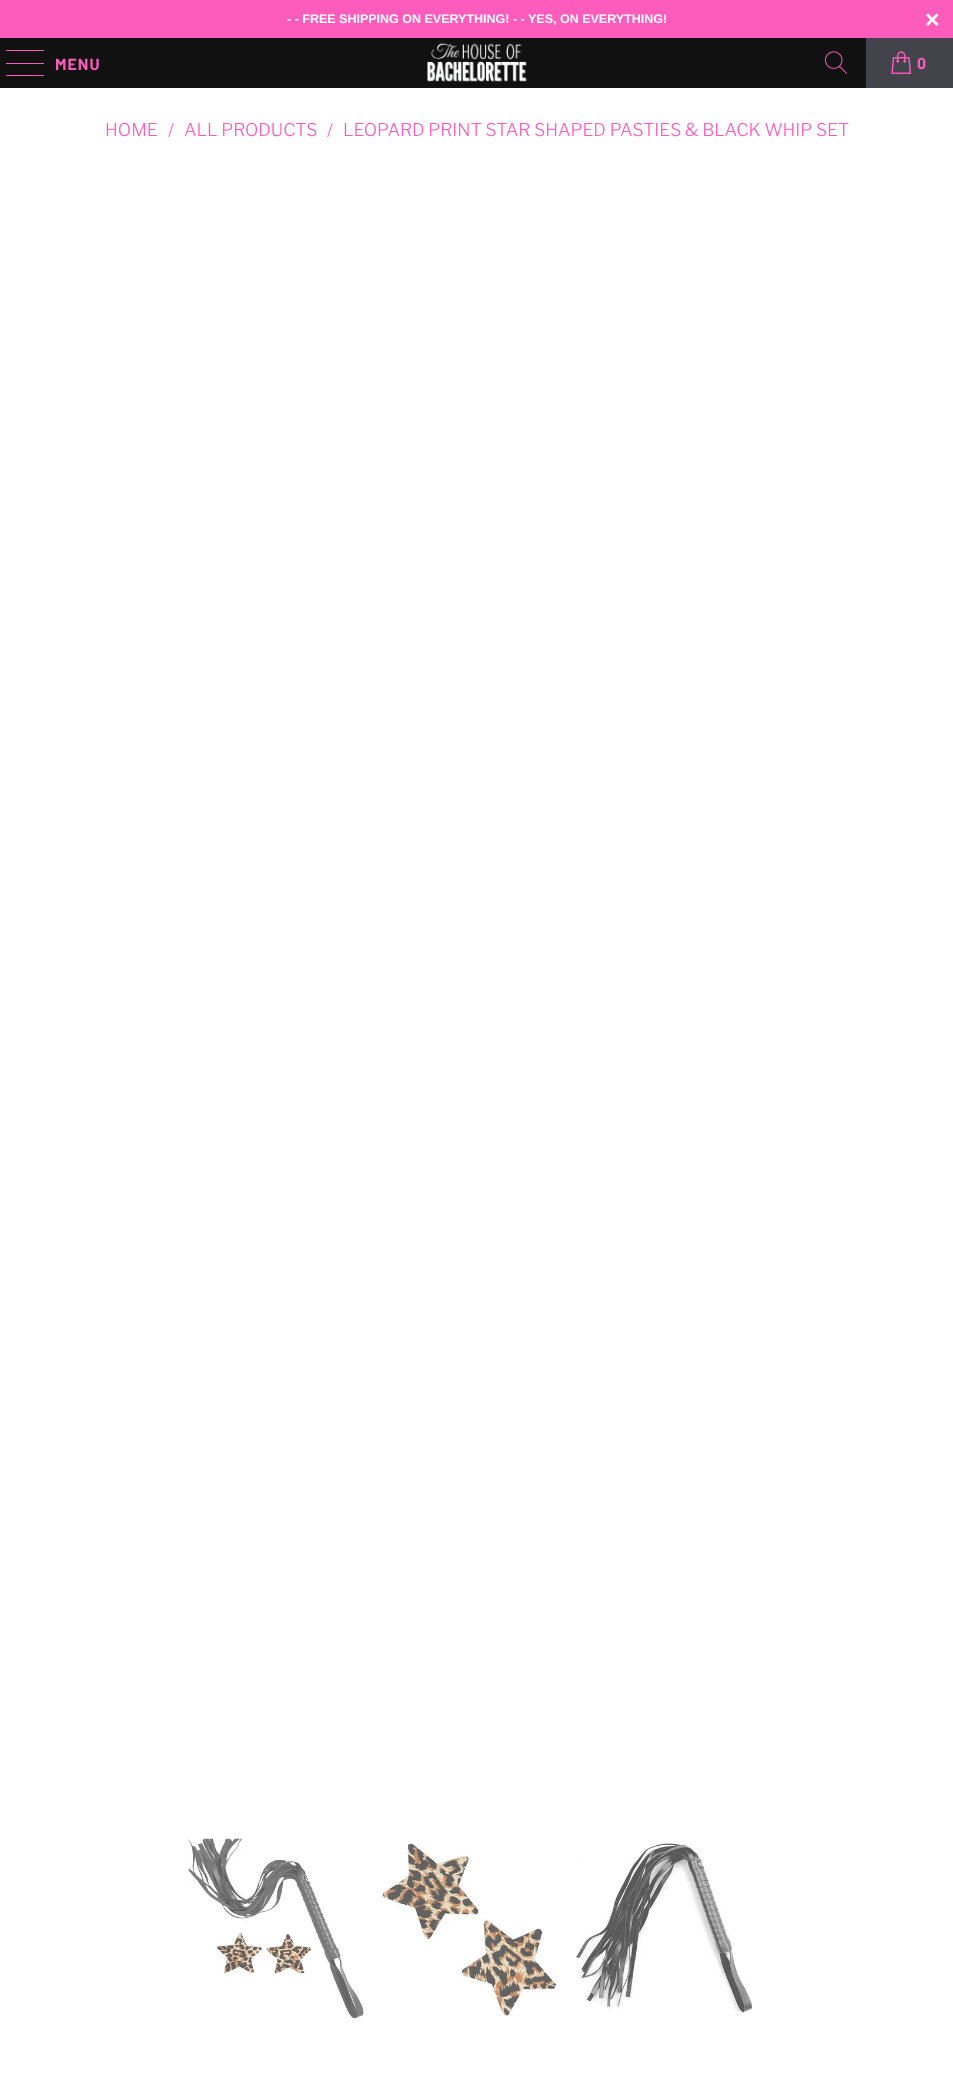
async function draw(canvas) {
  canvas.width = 953
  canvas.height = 2096
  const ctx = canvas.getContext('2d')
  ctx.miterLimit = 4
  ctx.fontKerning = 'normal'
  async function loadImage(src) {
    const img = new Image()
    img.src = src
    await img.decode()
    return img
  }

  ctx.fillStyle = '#fff'
  ctx.fillRect(0, 0, 953, 2096)
  ctx.fillStyle = '#fd5cbd'
  ctx.fillRect(0, 0, 953, 38)
  ctx.font = 'bold 12.5px Liberation Sans'
  ctx.fillStyle = '#fff'
  ctx.fillText('- - FREE SHIPPING ON EVERYTHING! - - YES, ON EVERYTHING!', 287, 23)
  ctx.font = 'bold 25px Liberation Sans'
  ctx.fillText('×', 925, 28)
  ctx.fillStyle = '#111'
  ctx.fillRect(0, 38, 866, 50)
  ctx.fillStyle = '#fd5cbd'
  ctx.beginPath()
  ctx.roundRect(6, 50, 38, 1, 0.5)
  ctx.fill()
  ctx.beginPath()
  ctx.roundRect(6, 63, 38, 1, 0.5)
  ctx.fill()
  ctx.beginPath()
  ctx.roundRect(6, 75, 38, 1, 0.5)
  ctx.fill()
  ctx.letterSpacing = '1px'
  ctx.font = 'bold 16px Barlow'
  ctx.fillText('MENU', 55, 70)
  ctx.drawImage(await loadImage('image0.png'), 427, 43, 100, 39)
  ctx.drawImage(await loadImage('image1.png'), 825, 51, 22, 23)
  ctx.fillStyle = '#43434c'
  ctx.fillRect(866, 38, 87, 50)
  ctx.drawImage(await loadImage('image2.png'), 891, 51, 21, 23)
  ctx.fillStyle = '#fd5cbd'
  ctx.fillText('0', 917, 69)
  ctx.letterSpacing = '0px'
  ctx.font = '300 17.5px Libre Franklin'
  ctx.fillText('HOME', 105, 136)
  ctx.fillText('/', 168, 136)
  ctx.fillText('ALL PRODUCTS', 184, 136)
  ctx.fillText('/', 327, 136)
  ctx.fillText('LEOPARD PRINT STAR SHAPED PASTIES & BLACK WHIP SET', 343, 136)
  ctx.drawImage(await loadImage('image3.png'), 188, 1838, 176, 181)
  ctx.drawImage(await loadImage('image4.png'), 382, 1843, 175, 174)
  ctx.drawImage(await loadImage('image5.png'), 576, 1841, 176, 172)
}

draw(document.querySelector('canvas'))
